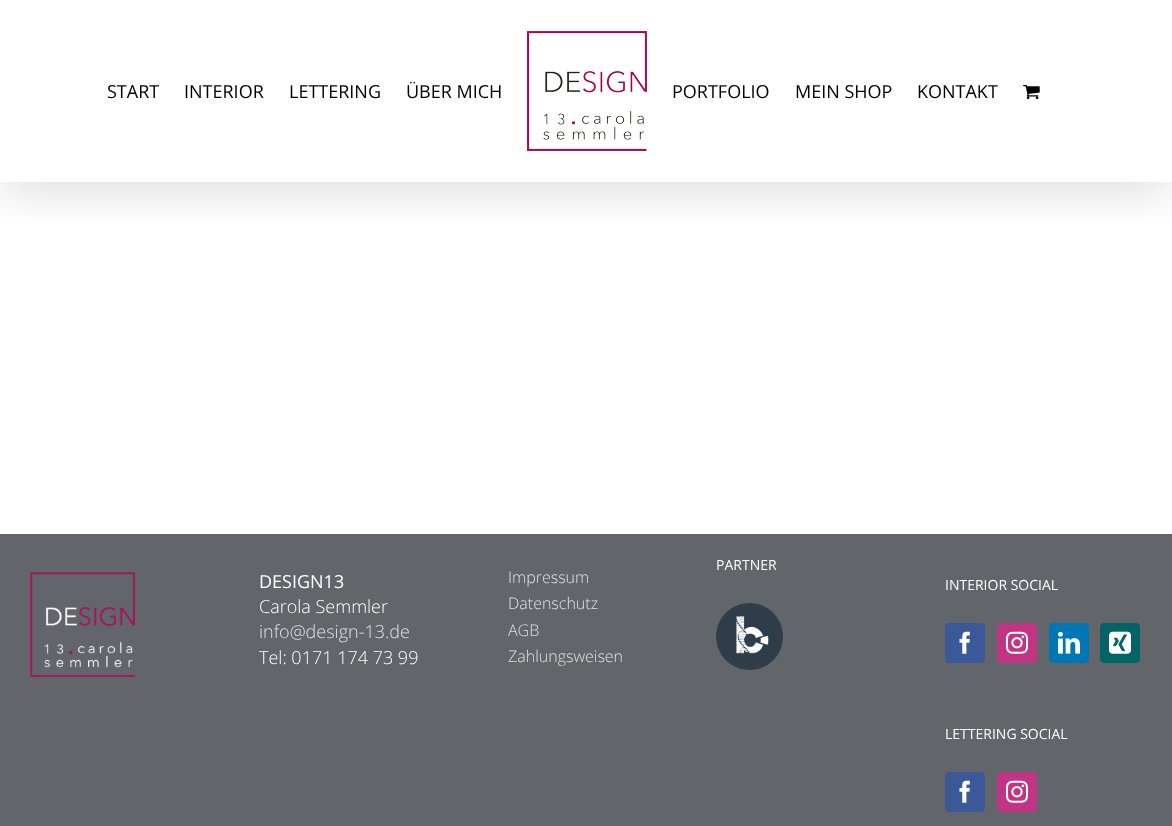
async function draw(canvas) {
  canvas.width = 1172
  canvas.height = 826
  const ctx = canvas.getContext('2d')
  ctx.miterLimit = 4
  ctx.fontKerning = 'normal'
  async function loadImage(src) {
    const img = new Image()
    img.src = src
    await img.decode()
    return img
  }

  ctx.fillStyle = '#fff'
  ctx.fillRect(0, 0, 1172, 826)
  ctx.save()
  ctx.beginPath()
  ctx.rect(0, 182, 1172, 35)
  ctx.clip()
  ctx.fillStyle = '#00000024'
  ctx.filter = 'blur(25px)'
  ctx.beginPath()
  ctx.rect(2, 12, 1168, 178)
  ctx.fill()
  ctx.filter = 'none'
  ctx.restore()
  ctx.font = '18px Open Sans'
  ctx.fillStyle = '#000'
  ctx.fillText('START', 107, 98)
  ctx.fillText('INTERIOR', 184, 98)
  ctx.fillText('LETTERING', 289, 98)
  ctx.fillText('ÜBER MICH', 406, 98)
  ctx.drawImage(await loadImage('image0.png'), 527, 31, 120, 120)
  ctx.fillText('PORTFOLIO', 672, 98)
  ctx.fillText('MEIN SHOP', 795, 98)
  ctx.fillText('KONTAKT', 917, 98)
  ctx.drawImage(await loadImage('image1.png'), 1023, 85, 17, 15)
  ctx.fillStyle = '#626569'
  ctx.fillRect(0, 534, 1172, 292)
  ctx.font = '14px Open Sans'
  ctx.fillStyle = '#fff'
  ctx.fillText('PARTNER', 716, 570)
  ctx.drawImage(await loadImage('image2.png'), 716, 603, 67, 67)
  ctx.drawImage(await loadImage('image3.png'), 30, 572, 105, 105)
  ctx.font = '18px Open Sans'
  ctx.fillText('DESIGN13', 259, 588)
  ctx.font = '300 18px Open Sans'
  ctx.fillText('Carola Semmler', 259, 613)
  ctx.fillStyle = '#e0e0e1'
  ctx.fillText('info@design-13.de', 259, 638)
  ctx.fillStyle = '#fff'
  ctx.fillText('Tel: 0171 174 73 99', 259, 664)
  ctx.font = '300 16px Open Sans'
  ctx.fillStyle = '#e0e0e1'
  ctx.fillText('Impressum', 508, 583)
  ctx.fillText('Datenschutz', 508, 609)
  ctx.fillText('AGB', 508, 636)
  ctx.fillText('Zahlungsweisen', 508, 662)
  ctx.font = '14px Open Sans'
  ctx.fillStyle = '#fff'
  ctx.fillText('INTERIOR SOCIAL', 945, 590)
  ctx.fillStyle = '#3b5998'
  ctx.beginPath()
  ctx.roundRect(945.5, 623.5, 39, 39, 3.5)
  ctx.fill()
  ctx.strokeStyle = '#3b5998'
  ctx.stroke()
  ctx.drawImage(await loadImage('image4.png'), 959, 631, 11, 23)
  ctx.fillStyle = '#c13584'
  ctx.beginPath()
  ctx.roundRect(997.5, 623.5, 39, 39, 3.5)
  ctx.fill()
  ctx.strokeStyle = '#c13584'
  ctx.stroke()
  ctx.drawImage(await loadImage('image5.png'), 1006, 631, 22, 23)
  ctx.fillStyle = '#0077b5'
  ctx.beginPath()
  ctx.roundRect(1049.5, 623.5, 39, 39, 3.5)
  ctx.fill()
  ctx.strokeStyle = '#0077b5'
  ctx.stroke()
  ctx.drawImage(await loadImage('image6.png'), 1058, 631, 22, 23)
  ctx.fillStyle = '#026466'
  ctx.beginPath()
  ctx.roundRect(1100.5, 623.5, 39, 39, 3.5)
  ctx.fill()
  ctx.strokeStyle = '#026466'
  ctx.stroke()
  ctx.drawImage(await loadImage('image7.png'), 1109, 631, 22, 23)
  ctx.fillStyle = '#fff'
  ctx.fillText('LETTERING SOCIAL', 945, 739)
  ctx.fillStyle = '#3b5998'
  ctx.beginPath()
  ctx.roundRect(945.5, 772.5, 39, 39, 3.5)
  ctx.fill()
  ctx.strokeStyle = '#3b5998'
  ctx.stroke()
  ctx.drawImage(await loadImage('image4.png'), 959, 780, 11, 23)
  ctx.fillStyle = '#c13584'
  ctx.beginPath()
  ctx.roundRect(997.5, 772.5, 39, 39, 3.5)
  ctx.fill()
  ctx.strokeStyle = '#c13584'
  ctx.stroke()
  ctx.drawImage(await loadImage('image5.png'), 1006, 780, 22, 23)
}

draw(document.querySelector('canvas'))
